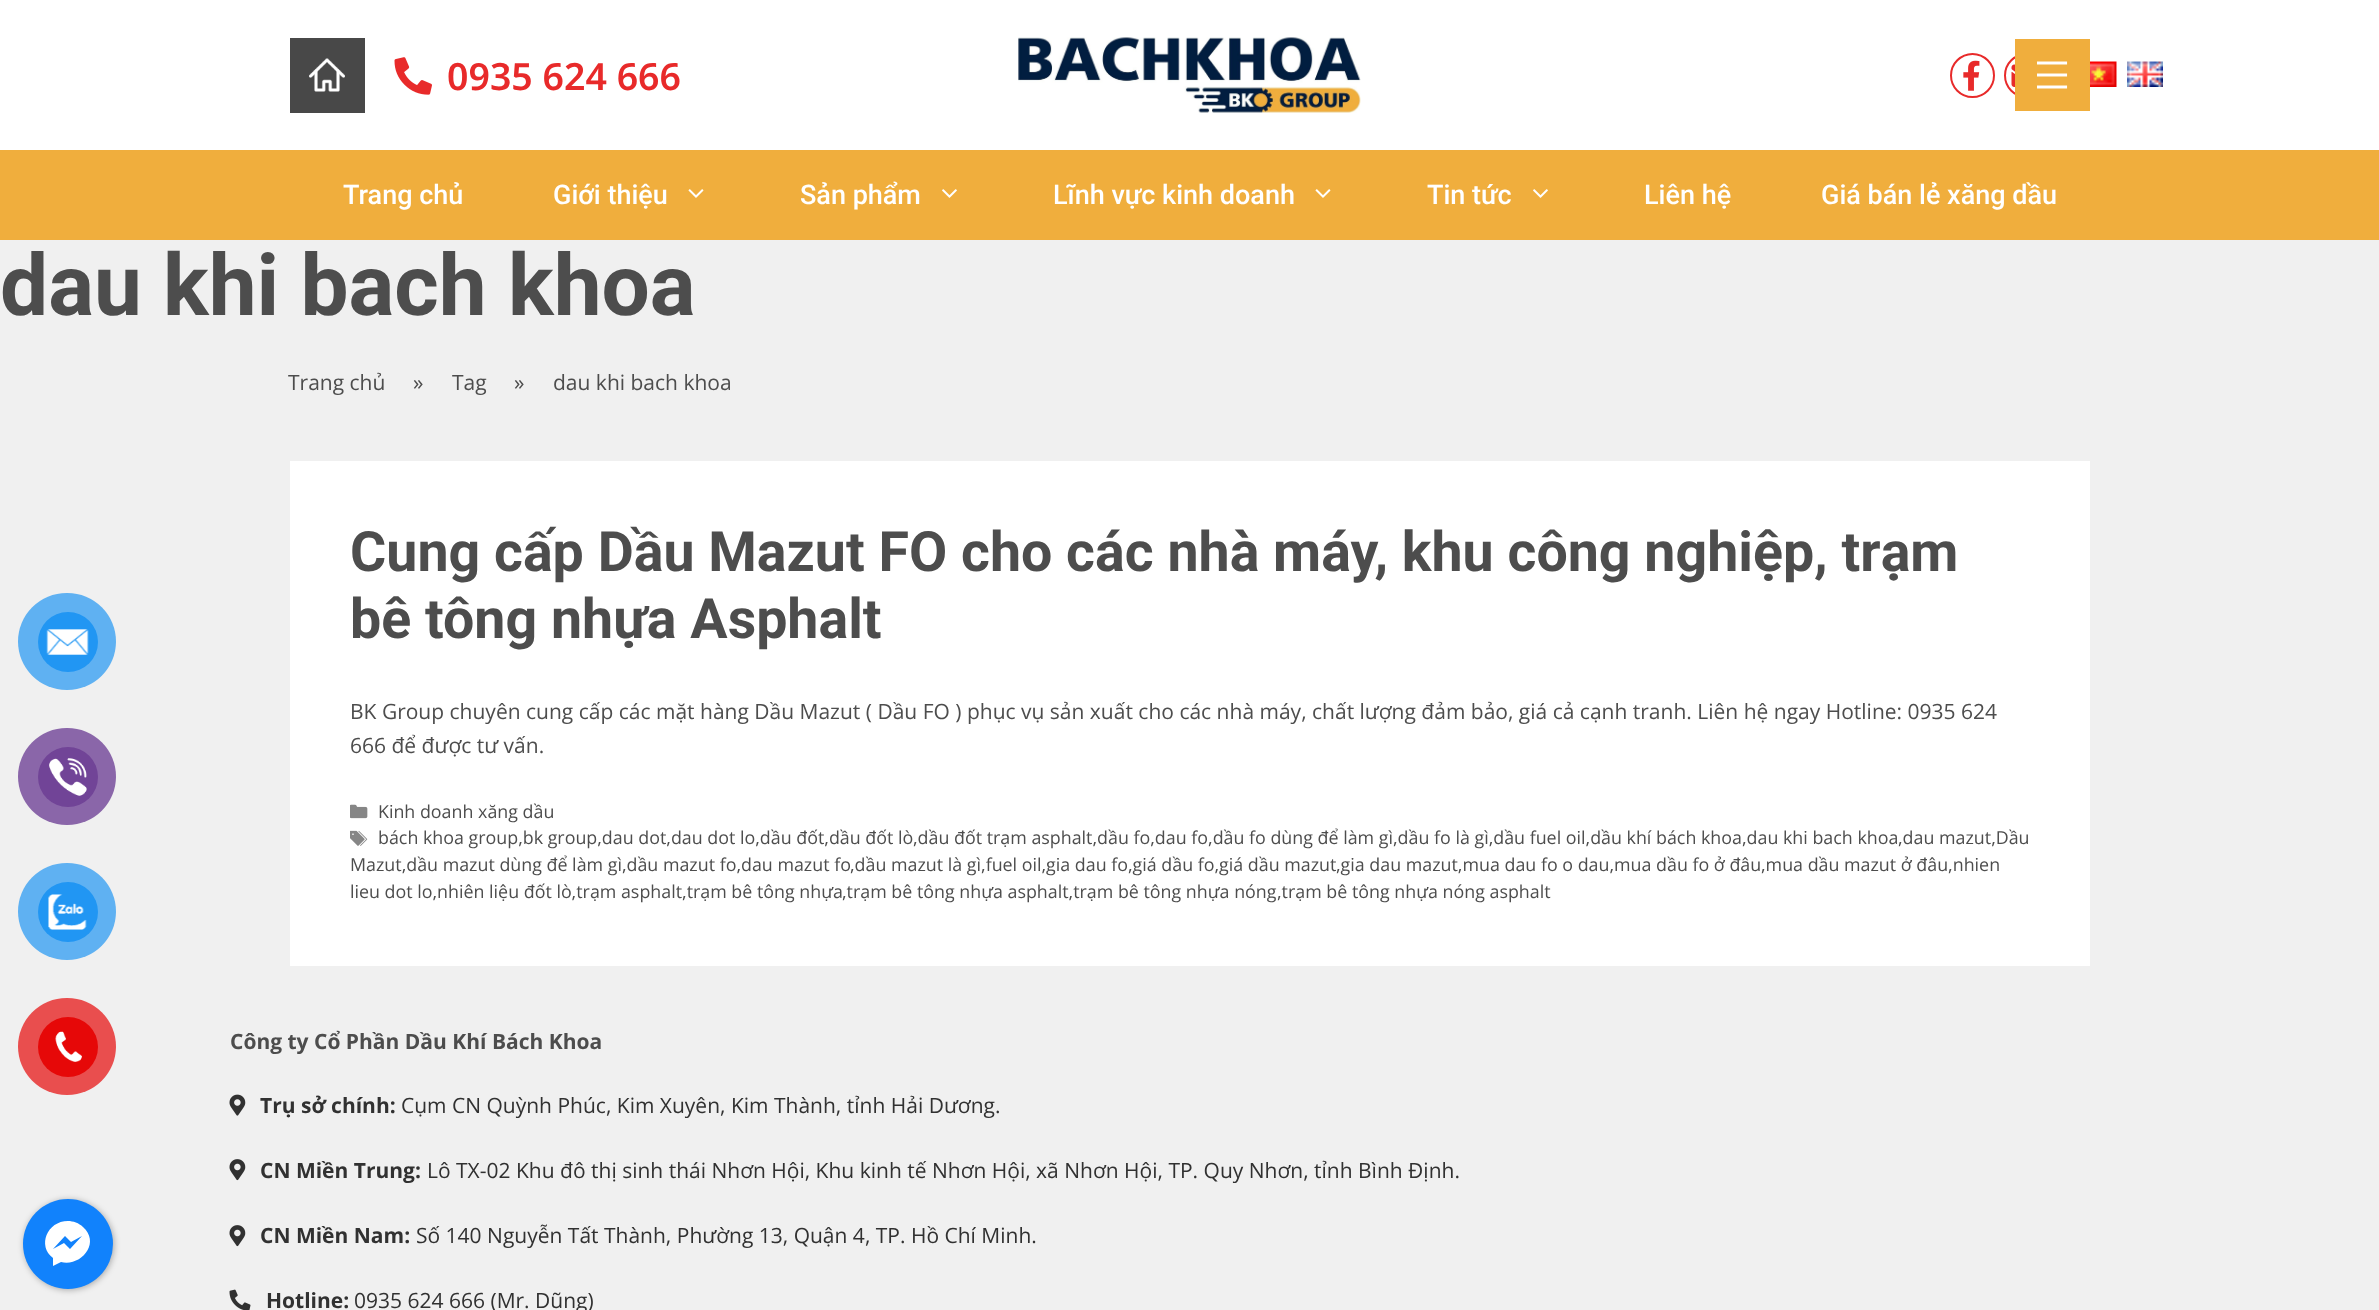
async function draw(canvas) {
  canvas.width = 2379
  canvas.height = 1310
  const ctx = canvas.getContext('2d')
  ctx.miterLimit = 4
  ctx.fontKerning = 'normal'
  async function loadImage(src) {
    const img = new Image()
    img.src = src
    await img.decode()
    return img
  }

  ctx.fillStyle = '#f0f0f0'
  ctx.fillRect(0, 0, 2379, 1310)
  ctx.fillStyle = '#fff'
  ctx.fillRect(0, 0, 2379, 150)
  ctx.beginPath()
  ctx.arc(2026.5, 75.5, 21.5, 0, 2 * Math.PI)
  ctx.strokeStyle = '#e82a2a'
  ctx.lineWidth = 2
  ctx.stroke()
  ctx.fillStyle = '#f0ae3d'
  ctx.fillRect(2015, 39, 75, 72)
  ctx.drawImage(await loadImage('image0.png'), 2037, 61, 31, 28)
  ctx.fillStyle = '#484848'
  ctx.fillRect(290, 38, 75, 75)
  ctx.drawImage(await loadImage('image1.png'), 309, 58, 36, 34)
  ctx.drawImage(await loadImage('image2.png'), 394, 57, 38, 38)
  ctx.font = '600 37.5px Noto Sans'
  ctx.fillStyle = '#e82a2a'
  ctx.fillText('0935 624 666', 447, 90)
  ctx.drawImage(await loadImage('image3.png'), 1018, 37, 343, 76)
  ctx.beginPath()
  ctx.arc(1972.5, 75.5, 21.5, 0, 2 * Math.PI)
  ctx.stroke()
  ctx.drawImage(await loadImage('image4.png'), 1963, 60, 17, 31)
  ctx.drawImage(await loadImage('image5.png'), 2011, 64, 4, 23)
  ctx.drawImage(await loadImage('image6.png'), 2090, 61, 27, 26)
  ctx.drawImage(await loadImage('image7.png'), 2127, 61, 36, 26)
  ctx.fillStyle = '#f0ae3d'
  ctx.fillRect(0, 150, 2379, 90)
  ctx.font = '500 27px Roboto'
  ctx.fillStyle = '#fff'
  ctx.fillText('Trang chủ', 343, 204)
  ctx.fillText('Giới thiệu', 553, 204)
  ctx.drawImage(await loadImage('image8.png'), 688, 189, 16, 9)
  ctx.fillText('Sản phẩm', 800, 204)
  ctx.drawImage(await loadImage('image9.png'), 942, 189, 15, 9)
  ctx.fillText('Lĩnh vực kinh doanh', 1053, 204)
  ctx.drawImage(await loadImage('image8.png'), 1315, 189, 16, 9)
  ctx.fillText('Tin tức', 1427, 204)
  ctx.drawImage(await loadImage('image9.png'), 1533, 189, 15, 9)
  ctx.fillText('Liên hệ', 1644, 204)
  ctx.fillText('Giá bán lẻ xăng dầu', 1821, 204)
  ctx.font = 'bold 85.5px Roboto'
  ctx.fillStyle = '#4d4d4d'
  ctx.fillText('dau khi bach khoa', 0, 315)
  ctx.fillStyle = '#5fb1f2'
  ctx.beginPath()
  ctx.roundRect(18, 593, 98, 97, 48.5)
  ctx.fill()
  ctx.fillStyle = '#2196f3'
  ctx.beginPath()
  ctx.arc(68, 642, 30, 0, 2 * Math.PI)
  ctx.fill()
  ctx.drawImage(await loadImage('image10.png'), 46, 629, 43, 26)
  ctx.fillStyle = '#8a66a9'
  ctx.beginPath()
  ctx.roundRect(18, 728, 98, 97, 48.5)
  ctx.fill()
  ctx.fillStyle = '#714497'
  ctx.beginPath()
  ctx.arc(68, 777, 30, 0, 2 * Math.PI)
  ctx.fill()
  ctx.drawImage(await loadImage('image11.png'), 49, 758, 38, 38)
  ctx.fillStyle = '#5fb1f2'
  ctx.beginPath()
  ctx.roundRect(18, 863, 98, 97, 48.5)
  ctx.fill()
  ctx.fillStyle = '#2196f3'
  ctx.beginPath()
  ctx.arc(68, 912, 30, 0, 2 * Math.PI)
  ctx.fill()
  ctx.drawImage(await loadImage('image12.png'), 48, 894, 39, 36)
  ctx.fillStyle = '#e94e4e'
  ctx.beginPath()
  ctx.roundRect(18, 998, 98, 97, 48.5)
  ctx.fill()
  ctx.fillStyle = '#e60808'
  ctx.beginPath()
  ctx.arc(68, 1047, 30, 0, 2 * Math.PI)
  ctx.fill()
  ctx.drawImage(await loadImage('image13.png'), 55, 1031, 27, 31)
  ctx.font = '21px Open Sans'
  ctx.fillStyle = '#4d4d4d'
  ctx.fillText('Trang chủ', 288, 390)
  ctx.fillText('»', 413, 390)
  ctx.fillText('Tag', 452, 390)
  ctx.fillText('»', 514, 390)
  ctx.fillText('dau khi bach khoa', 553, 390)
  ctx.fillStyle = '#fff'
  ctx.fillRect(290, 461, 1800, 505)
  ctx.font = 'bold 55.5px Roboto'
  ctx.fillStyle = '#4d4d4d'
  ctx.fillText('Cung cấp Dầu Mazut FO cho các nhà máy, khu công nghiệp, trạm', 350, 571)
  ctx.fillText('bê tông nhựa Asphalt', 350, 638)
  ctx.font = '21px Open Sans'
  ctx.fillText('BK Group chuyên cung cấp các mặt hàng Dầu Mazut ( Dầu FO ) phục vụ sản xuất cho các nhà máy, chất lượng đảm bảo, giá cả cạnh tranh. Liên hệ ngay Hotline: 0935 624', 350, 719)
  ctx.fillText('666 để được tư vấn.', 350, 753)
  ctx.drawImage(await loadImage('image14.png'), 350, 804, 18, 15)
  ctx.font = '17.85px Open Sans'
  ctx.fillText('Kinh doanh xăng dầu', 378, 818)
  ctx.drawImage(await loadImage('image15.png'), 350, 830, 18, 16)
  ctx.fillText('bách khoa group,bk group,dau dot,dau dot lo,dầu đốt,dầu đốt lò', 378, 844)
  ctx.fillText(',dầu đốt trạm asphalt,dầu fo,dau fo,dầu fo dùng để làm gì', 913, 844)
  ctx.fillText(',dầu fo là gì,dầu fuel oil,dầu khí bách khoa,dau khi bach khoa', 1393, 844)
  ctx.fillText(',dau mazut,Dầu', 1898, 844)
  ctx.fillText('Mazut,dầu mazut dùng để làm gì,dầu mazut fo,dau mazut fo', 350, 871)
  ctx.fillText(',dầu mazut là gì,fuel oil,gia dau fo,giá dầu fo,giá dầu mazut', 850, 871)
  ctx.fillText(',gia dau mazut,mua dau fo o dau,mua dầu fo ở đâu', 1336, 871)
  ctx.fillText(',mua dầu mazut ở đâu,nhien', 1761, 871)
  ctx.fillText('lieu dot lo,nhiên liệu đốt lò,trạm asphalt,trạm bê tông nhựa', 350, 898)
  ctx.fillText(',trạm bê tông nhựa asphalt,trạm bê tông nhựa nóng', 842, 898)
  ctx.fillText(',trạm bê tông nhựa nóng asphalt', 1277, 898)
  ctx.fillStyle = '#0000004d'
  ctx.filter = 'blur(3px)'
  ctx.beginPath()
  ctx.roundRect(24, 1200, 90, 90, 45)
  ctx.fill()
  ctx.filter = 'none'
  ctx.fillStyle = '#1182fc'
  ctx.beginPath()
  ctx.arc(68, 1244, 45, 0, 2 * Math.PI)
  ctx.fill()
  ctx.fillStyle = '#fff'
  ctx.beginPath()
  ctx.moveTo(68, 1221)
  ctx.bezierCurveTo(47, 1221, 37, 1246, 53, 1258)
  ctx.lineTo(53, 1266)
  ctx.lineTo(61, 1262)
  ctx.bezierCurveTo(81, 1267, 101, 1243, 83, 1227)
  ctx.bezierCurveTo(79, 1223, 73, 1221, 68, 1221)
  ctx.closePath()
  ctx.moveTo(70, 1249)
  ctx.lineTo(64, 1243)
  ctx.lineTo(53, 1249)
  ctx.lineTo(65, 1236)
  ctx.lineTo(71, 1242)
  ctx.lineTo(82, 1236)
  ctx.closePath()
  ctx.fill()
  ctx.font = 'bold 21px Open Sans'
  ctx.fillStyle = '#4d4d4d'
  ctx.fillText('Công ty Cổ Phần Dầu Khí Bách Khoa', 230, 1049)
  ctx.drawImage(await loadImage('image16.png'), 229, 1094, 17, 22)
  ctx.fillStyle = '#313131'
  ctx.fillText('Trụ sở chính:', 260, 1113)
  ctx.font = '21px Open Sans'
  ctx.fillText('Cụm CN Quỳnh Phúc, Kim Xuyên, Kim Thành, tỉnh Hải Dương.', 401, 1113)
  ctx.drawImage(await loadImage('image17.png'), 229, 1159, 17, 22)
  ctx.font = 'bold 21px Open Sans'
  ctx.fillText('CN Miền Trung:', 260, 1178)
  ctx.font = '21px Open Sans'
  ctx.fillText('Lô TX-02 Khu đô thị sinh thái Nhơn Hội, Khu kinh tế Nhơn Hội, xã Nhơn Hội, TP. Quy Nhơn, tỉnh Bình Định.', 427, 1178)
  ctx.drawImage(await loadImage('image17.png'), 229, 1225, 17, 22)
  ctx.font = 'bold 21px Open Sans'
  ctx.fillText('CN Miền Nam:', 260, 1243)
  ctx.font = '21px Open Sans'
  ctx.fillText('Số 140 Nguyễn Tất Thành, Phường 13, Quận 4, TP. Hồ Chí Minh.', 416, 1243)
  ctx.drawImage(await loadImage('image18.png'), 229, 1289, 22, 21)
  ctx.font = 'bold 21px Open Sans'
  ctx.fillText('Hotline:', 266, 1308)
  ctx.font = '21px Open Sans'
  ctx.fillText('0935 624 666 (Mr. Dũng)', 354, 1308)
}

draw(document.querySelector('canvas'))
